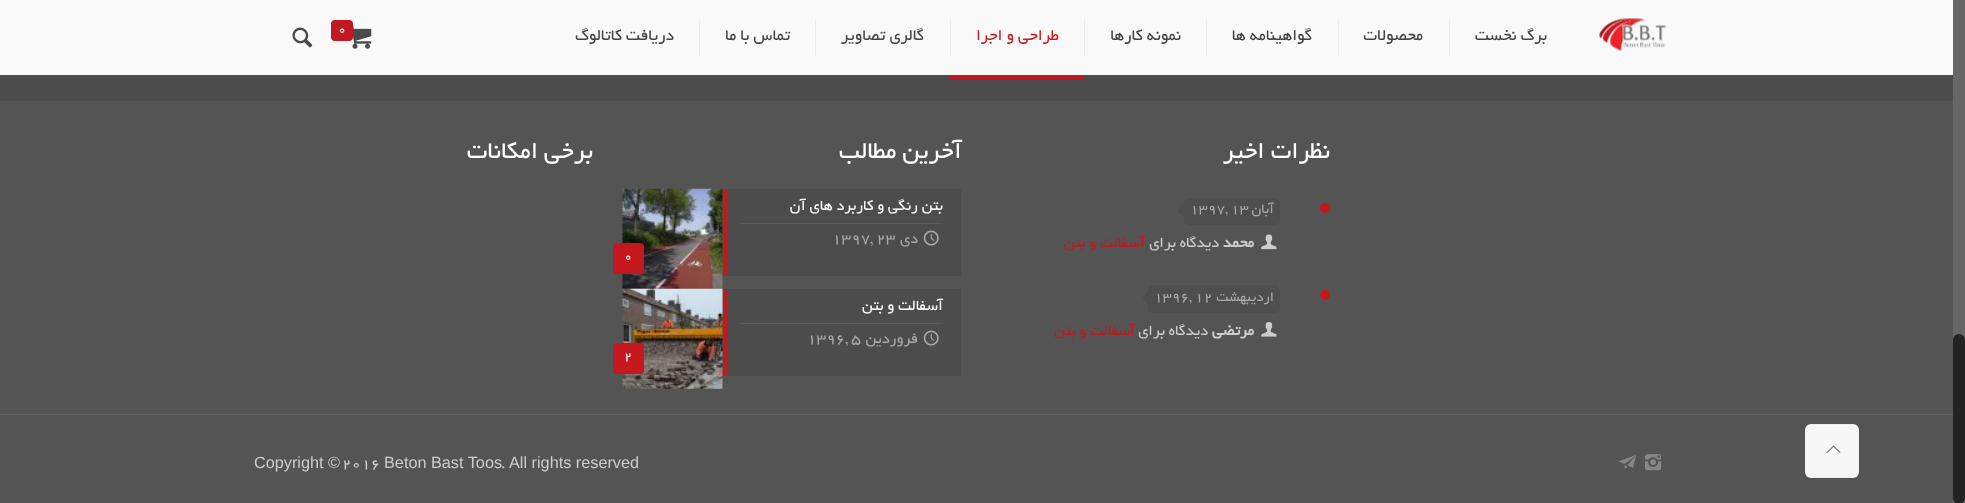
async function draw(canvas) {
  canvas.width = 1965
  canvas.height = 503
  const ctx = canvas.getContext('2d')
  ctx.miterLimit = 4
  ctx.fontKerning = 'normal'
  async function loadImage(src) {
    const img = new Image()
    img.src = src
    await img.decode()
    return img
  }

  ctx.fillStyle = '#545454'
  ctx.fillRect(0, 0, 1965, 503)
  ctx.fillStyle = '#666'
  ctx.fillRect(1953, 0, 12, 503)
  ctx.fillStyle = '#222'
  ctx.beginPath()
  ctx.roundRect(1953, 334, 12, 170, 6)
  ctx.fill()
  ctx.fillStyle = '#f7f7f7'
  ctx.beginPath()
  ctx.roundRect(1805, 424, 54, 54, 6)
  ctx.fill()
  ctx.strokeStyle = '#00000008'
  ctx.strokeRect(1805.5, 424.5, 53, 53)
  ctx.drawImage(await loadImage('image0.png'), 1826, 445, 15, 8)
  ctx.fillStyle = '#4c4c4c'
  ctx.fillRect(0, 0, 1953, 101)
  ctx.fillStyle = '#fffffff7'
  ctx.fillRect(0, 0, 1953, 75)
  ctx.drawImage(await loadImage('image1.png'), 1599, 18, 68, 33)
  ctx.fillStyle = '#ededed'
  ctx.fillRect(1449, 19, 1, 37)
  ctx.direction = 'rtl'
  ctx.font = '17.5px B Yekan'
  ctx.fillStyle = '#444'
  ctx.fillText('برگ نخست', 1547, 40)
  ctx.fillStyle = '#ededed'
  ctx.fillRect(1338, 19, 1, 37)
  ctx.fillStyle = '#444'
  ctx.fillText('محصولات', 1423, 40)
  ctx.fillStyle = '#ededed'
  ctx.fillRect(1206, 19, 1, 37)
  ctx.fillStyle = '#444'
  ctx.fillText('گواهینامه ها', 1312, 40)
  ctx.fillStyle = '#0000000d'
  ctx.fillRect(1084, 19, 1, 37)
  ctx.fillStyle = '#444'
  ctx.fillText('نمونه کارها', 1181, 40)
  ctx.fillStyle = '#0000000d'
  ctx.fillRect(950, 19, 1, 37)
  ctx.fillStyle = '#c71e25'
  ctx.fillText('طراحی و اجرا', 1059, 40)
  ctx.fillStyle = '#c1191f'
  ctx.fillRect(950, 75, 134, 5)
  ctx.fillStyle = '#ededed'
  ctx.fillRect(815, 19, 1, 37)
  ctx.fillStyle = '#444'
  ctx.fillText('گالری تصاویر', 924, 40)
  ctx.fillStyle = '#ededed'
  ctx.fillRect(699, 19, 1, 37)
  ctx.fillStyle = '#444'
  ctx.fillText('تماس با ما', 790, 40)
  ctx.fillText('دریافت کاتالوگ', 674, 40)
  ctx.drawImage(await loadImage('image2.png'), 352, 26, 20, 23)
  ctx.fillStyle = '#c1191f'
  ctx.beginPath()
  ctx.roundRect(331, 20, 22, 21, 4)
  ctx.fill()
  ctx.direction = 'ltr'
  ctx.font = '14px B Yekan'
  ctx.fillStyle = '#fff'
  ctx.fillText('0', 338, 33)
  ctx.drawImage(await loadImage('image3.png'), 292, 27, 21, 21)
  ctx.direction = 'rtl'
  ctx.font = '26.25px B Yekan'
  ctx.fillText('نظرات اخیر', 1330, 158)
  ctx.fillStyle = '#c5171e'
  ctx.beginPath()
  ctx.arc(1325, 208, 5, 0, 2 * Math.PI)
  ctx.fill()
  ctx.fillStyle = '#4e4e4e'
  ctx.beginPath()
  ctx.roundRect(1184, 198, 96, 27, 5)
  ctx.fill()
  ctx.font = '15px B Yekan'
  ctx.fillStyle = '#a8a8a8'
  ctx.fillText('آبان', 1274, 213)
  ctx.direction = 'ltr'
  ctx.fillText('۱۳۹۷, ۱۳', 1190, 213)
  ctx.fillStyle = '#4e4e4e'
  ctx.beginPath()
  ctx.moveTo(1183.5, 204.5)
  ctx.lineTo(1183.5, 217)
  ctx.lineTo(1177, 211)
  ctx.closePath()
  ctx.fill()
  ctx.drawImage(await loadImage('image4.png'), 1261, 234, 16, 16)
  ctx.direction = 'rtl'
  ctx.font = 'bold 16.25px B Yekan'
  ctx.fillStyle = '#ccc'
  ctx.fillText('محمد', 1254, 247)
  ctx.font = '16.25px B Yekan'
  ctx.fillText('دیدگاه برای', 1219, 247)
  ctx.fillStyle = '#c5171e'
  ctx.fillText('آسفالت و بتن', 1145, 247)
  ctx.beginPath()
  ctx.arc(1325, 295, 5, 0, 2 * Math.PI)
  ctx.fill()
  ctx.fillStyle = '#4e4e4e'
  ctx.beginPath()
  ctx.roundRect(1148, 285, 132, 28, 5)
  ctx.fill()
  ctx.font = '15px B Yekan'
  ctx.fillStyle = '#a8a8a8'
  ctx.fillText('اردیبهشت', 1274, 301)
  ctx.direction = 'ltr'
  ctx.fillText('۱۳۹۶, ۱۲', 1154, 301)
  ctx.fillStyle = '#4e4e4e'
  ctx.beginPath()
  ctx.moveTo(1148, 292)
  ctx.lineTo(1148, 304.5)
  ctx.lineTo(1142, 298.5)
  ctx.closePath()
  ctx.fill()
  ctx.drawImage(await loadImage('image5.png'), 1261, 322, 16, 15)
  ctx.direction = 'rtl'
  ctx.font = 'bold 16.25px B Yekan'
  ctx.fillStyle = '#ccc'
  ctx.fillText('مرتضی', 1254, 335)
  ctx.font = '16.25px B Yekan'
  ctx.fillText('دیدگاه برای', 1208, 335)
  ctx.fillStyle = '#c5171e'
  ctx.fillText('آسفالت و بتن', 1135, 335)
  ctx.font = '26.25px B Yekan'
  ctx.fillStyle = '#fff'
  ctx.fillText('آخرین مطالب', 962, 158)
  ctx.fillStyle = '#4c4c4c'
  ctx.fillRect(728, 189, 233, 87)
  ctx.fillStyle = '#5a5a5a'
  ctx.fillRect(741, 223, 202, 1)
  ctx.font = '16.25px B Yekan'
  ctx.fillStyle = '#fff'
  ctx.fillText('بتن رنگی و کاربرد های آن', 943, 210)
  ctx.fillStyle = '#c5171e'
  ctx.fillRect(723, 189, 5, 87)
  ctx.drawImage(await loadImage('image6.png'), 923, 230, 16, 16)
  ctx.fillStyle = '#a8a8a8'
  ctx.fillText('دی', 918, 243)
  ctx.direction = 'ltr'
  ctx.fillText('۱۳۹۷, ۲۳', 832, 243)
  ctx.drawImage(await loadImage('image7.png'), 622, 188, 101, 101)
  ctx.fillStyle = '#c5171e'
  ctx.beginPath()
  ctx.roundRect(613, 243, 31, 31, 4)
  ctx.fill()
  ctx.font = '14px B Yekan'
  ctx.fillStyle = '#fff'
  ctx.fillText('0', 624, 260)
  ctx.fillStyle = '#4c4c4c'
  ctx.fillRect(728, 289, 233, 87)
  ctx.fillStyle = '#5a5a5a'
  ctx.fillRect(741, 323, 202, 1)
  ctx.direction = 'rtl'
  ctx.font = '16.25px B Yekan'
  ctx.fillStyle = '#fff'
  ctx.fillText('آسفالت و بتن', 943, 310)
  ctx.fillStyle = '#c5171e'
  ctx.fillRect(723, 289, 5, 87)
  ctx.drawImage(await loadImage('image6.png'), 923, 330, 16, 16)
  ctx.fillStyle = '#a8a8a8'
  ctx.fillText('فروردین', 918, 343)
  ctx.direction = 'ltr'
  ctx.fillText('۱۳۹۶, ۵', 807, 343)
  ctx.drawImage(await loadImage('image8.png'), 622, 288, 101, 101)
  ctx.fillStyle = '#c5171e'
  ctx.beginPath()
  ctx.roundRect(613, 343, 31, 31, 4)
  ctx.fill()
  ctx.font = '14px B Yekan'
  ctx.fillStyle = '#fff'
  ctx.fillText('2', 624, 360)
  ctx.direction = 'rtl'
  ctx.font = '26.25px B Yekan'
  ctx.fillText('برخی امکانات', 593, 158)
  ctx.fillStyle = '#656565'
  ctx.fillRect(0, 414, 1953, 1)
  ctx.drawImage(await loadImage('image9.png'), 1645, 454, 17, 17)
  ctx.drawImage(await loadImage('image10.png'), 1619, 455, 17, 14)
  ctx.direction = 'ltr'
  ctx.font = '16.25px Liberation Sans'
  ctx.fillStyle = '#ccc'
  ctx.fillText('All rights reserved', 509, 468)
  ctx.font = '16.25px B Yekan'
  ctx.fillText('.', 501, 468)
  ctx.font = '16.25px Liberation Sans'
  ctx.fillText('Beton Bast Toos', 384, 468)
  ctx.font = '16.25px B Yekan'
  ctx.fillText('2016', 342, 468)
  ctx.font = '16.25px Liberation Sans'
  ctx.fillText('Copyright ©', 254, 468)
}

draw(document.querySelector('canvas'))
